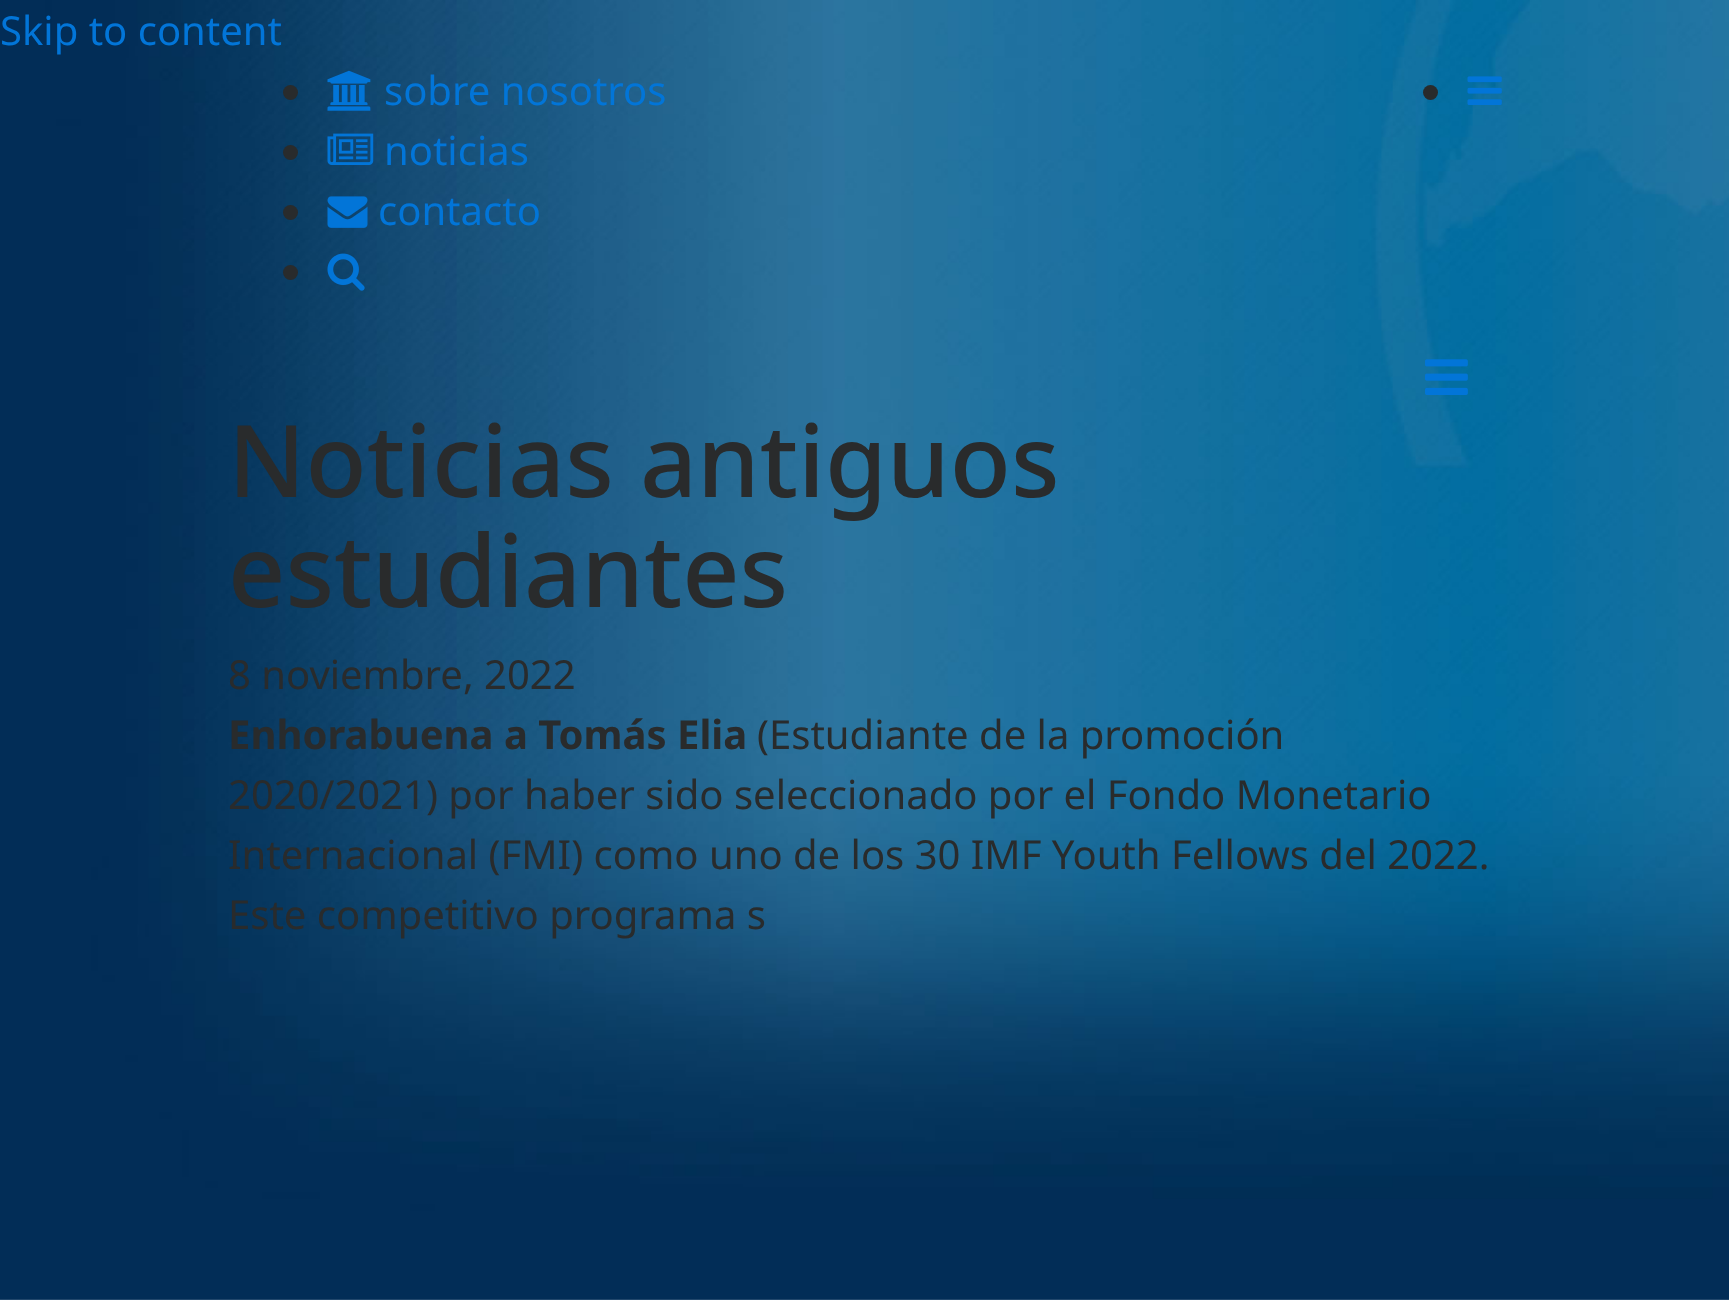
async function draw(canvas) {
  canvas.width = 1729
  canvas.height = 1300
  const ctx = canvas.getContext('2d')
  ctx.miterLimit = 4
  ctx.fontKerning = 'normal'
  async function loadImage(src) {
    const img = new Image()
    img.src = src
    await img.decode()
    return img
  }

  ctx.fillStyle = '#fff'
  ctx.fillRect(0, 0, 1729, 1300)
  ctx.drawImage(await loadImage('image0.png'), 0, 0, 1729, 1300)
  ctx.font = '40px Noto Sans'
  ctx.fillStyle = '#0275d8'
  ctx.fillText('Skip to content', 0, 45)
  ctx.fillStyle = '#292b2c'
  ctx.beginPath()
  ctx.arc(290.5, 92.5, 7.5, 0, 2 * Math.PI)
  ctx.fill()
  ctx.drawImage(await loadImage('image1.png'), 327, 70, 44, 41)
  ctx.fillStyle = '#0275d8'
  ctx.fillText('sobre nosotros', 384, 105)
  ctx.fillStyle = '#292b2c'
  ctx.beginPath()
  ctx.arc(290.5, 152.5, 7.5, 0, 2 * Math.PI)
  ctx.fill()
  ctx.drawImage(await loadImage('image2.png'), 327, 133, 47, 32)
  ctx.fillStyle = '#0275d8'
  ctx.fillText('noticias', 384, 165)
  ctx.fillStyle = '#292b2c'
  ctx.beginPath()
  ctx.arc(290.5, 212.5, 7.5, 0, 2 * Math.PI)
  ctx.fill()
  ctx.drawImage(await loadImage('image3.png'), 327, 196, 41, 32)
  ctx.fillStyle = '#0275d8'
  ctx.fillText('contacto', 378, 225)
  ctx.fillStyle = '#292b2c'
  ctx.beginPath()
  ctx.arc(290.5, 272.5, 7.5, 0, 2 * Math.PI)
  ctx.fill()
  ctx.drawImage(await loadImage('image4.png'), 327, 253, 38, 38)
  ctx.beginPath()
  ctx.arc(1430.5, 92.5, 7.5, 0, 2 * Math.PI)
  ctx.fill()
  ctx.drawImage(await loadImage('image5.png'), 1467, 76, 35, 29)
  ctx.drawImage(await loadImage('image6.png'), 1425, 359, 43, 36)
  ctx.font = '500 100px Noto Sans'
  ctx.fillText('Noticias antiguos', 228, 497)
  ctx.fillText('estudiantes', 228, 607)
  ctx.font = '40px Noto Sans'
  ctx.fillText('8 noviembre, 2022', 228, 689)
  ctx.font = 'bold 40px Noto Sans'
  ctx.fillText('Enhorabuena a Tomás Elia', 228, 749)
  ctx.font = '40px Noto Sans'
  ctx.fillText('(Estudiante de la promoción', 757, 749)
  ctx.fillText('2020/2021) por haber sido seleccionado por el Fondo Monetario', 228, 809)
  ctx.fillText('Internacional (FMI) como uno de los 30 IMF Youth Fellows del 2022.', 228, 869)
  ctx.fillText('Este competitivo programa s', 228, 929)
}

draw(document.querySelector('canvas'))
